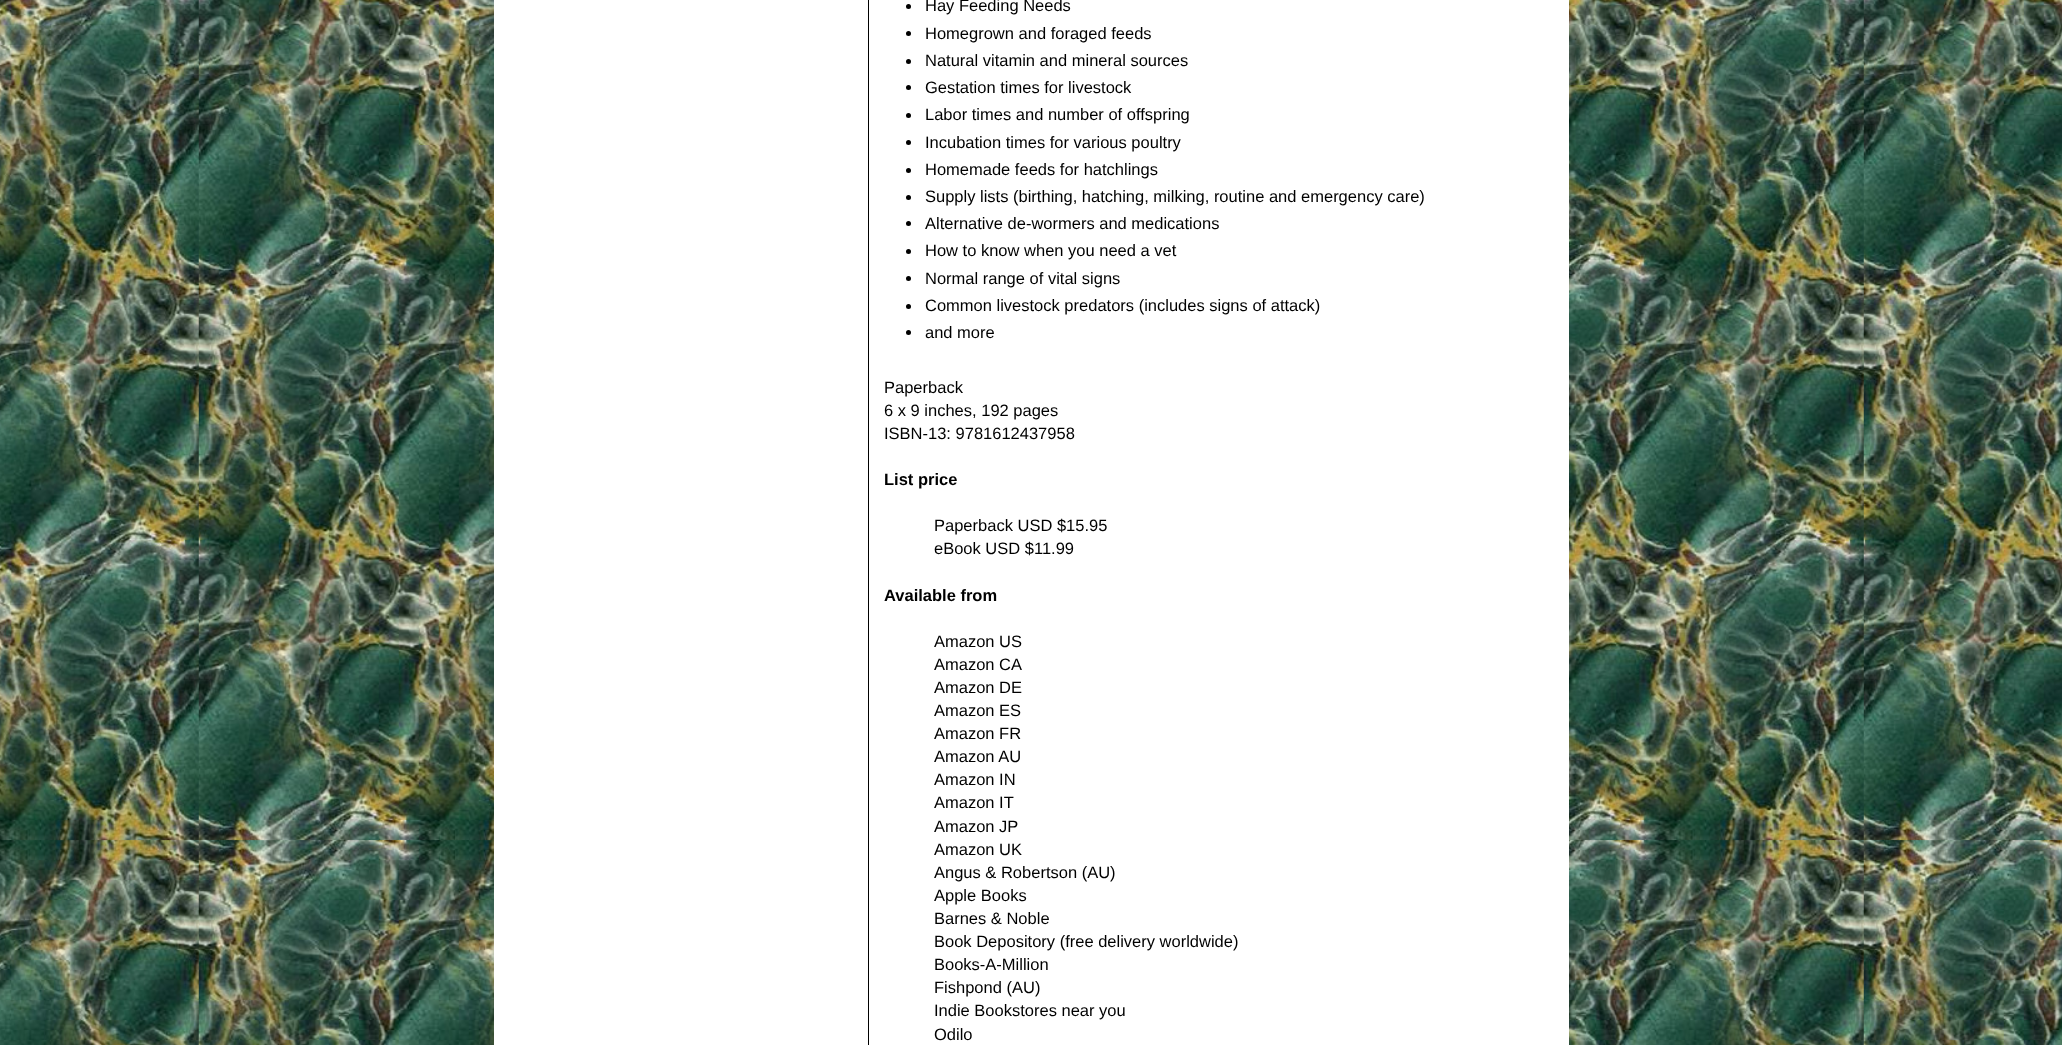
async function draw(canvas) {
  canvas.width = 2062
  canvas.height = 1045
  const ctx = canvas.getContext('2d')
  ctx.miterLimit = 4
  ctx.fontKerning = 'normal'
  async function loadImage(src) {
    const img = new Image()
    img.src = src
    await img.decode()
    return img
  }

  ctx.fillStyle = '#fff'
  ctx.fillRect(0, 0, 2062, 1045)
  ctx.drawImage(await loadImage('image0.png'), 0, 0, 2062, 1045)
  ctx.fillRect(494, 0, 1075, 1045)
  ctx.fillStyle = '#000'
  ctx.fillRect(868, 0, 1, 1045)
  ctx.beginPath()
  ctx.arc(908.5, 6.5, 2.5, 0, 2 * Math.PI)
  ctx.fill()
  ctx.font = '16.5px Liberation Sans'
  ctx.fillText('Hay Feeding Needs', 925, 11)
  ctx.beginPath()
  ctx.arc(908.5, 33.5, 2.5, 0, 2 * Math.PI)
  ctx.fill()
  ctx.fillText('Homegrown and foraged feeds', 925, 39)
  ctx.beginPath()
  ctx.arc(908.5, 61.5, 2.5, 0, 2 * Math.PI)
  ctx.fill()
  ctx.fillText('Natural vitamin and mineral sources', 925, 66)
  ctx.beginPath()
  ctx.arc(908.5, 87.5, 2.5, 0, 2 * Math.PI)
  ctx.fill()
  ctx.fillText('Gestation times for livestock', 925, 93)
  ctx.beginPath()
  ctx.arc(908.5, 115.5, 2.5, 0, 2 * Math.PI)
  ctx.fill()
  ctx.fillText('Labor times and number of offspring', 925, 120)
  ctx.beginPath()
  ctx.arc(908.5, 142.5, 2.5, 0, 2 * Math.PI)
  ctx.fill()
  ctx.fillText('Incubation times for various poultry', 925, 148)
  ctx.beginPath()
  ctx.arc(908.5, 170.5, 2.5, 0, 2 * Math.PI)
  ctx.fill()
  ctx.fillText('Homemade feeds for hatchlings', 925, 175)
  ctx.beginPath()
  ctx.arc(908.5, 197.5, 2.5, 0, 2 * Math.PI)
  ctx.fill()
  ctx.fillText('Supply lists (birthing, hatching, milking, routine and emergency care)', 925, 202)
  ctx.beginPath()
  ctx.arc(908.5, 223.5, 2.5, 0, 2 * Math.PI)
  ctx.fill()
  ctx.fillText('Alternative de-wormers and medications', 925, 229)
  ctx.beginPath()
  ctx.arc(908.5, 251.5, 2.5, 0, 2 * Math.PI)
  ctx.fill()
  ctx.fillText('How to know when you need a vet', 925, 256)
  ctx.beginPath()
  ctx.arc(908.5, 278.5, 2.5, 0, 2 * Math.PI)
  ctx.fill()
  ctx.fillText('Normal range of vital signs', 925, 284)
  ctx.beginPath()
  ctx.arc(908.5, 306.5, 2.5, 0, 2 * Math.PI)
  ctx.fill()
  ctx.fillText('Common livestock predators (includes signs of attack)', 925, 311)
  ctx.beginPath()
  ctx.arc(908.5, 332.5, 2.5, 0, 2 * Math.PI)
  ctx.fill()
  ctx.fillText('and more', 925, 338)
  ctx.fillText('Paperback', 884, 393)
  ctx.fillText('6 x 9 inches, 192 pages', 884, 416)
  ctx.fillText('ISBN-13: 9781612437958', 884, 439)
  ctx.font = 'bold 16.5px Liberation Sans'
  ctx.fillText('List price', 884, 485)
  ctx.font = '16.5px Liberation Sans'
  ctx.fillText('Paperback USD $15.95', 934, 531)
  ctx.fillText('eBook USD $11.99', 934, 554)
  ctx.font = 'bold 16.5px Liberation Sans'
  ctx.fillText('Available from', 884, 601)
  ctx.font = '16.5px Liberation Sans'
  ctx.fillText('Amazon US', 934, 647)
  ctx.fillText('Amazon CA', 934, 670)
  ctx.fillText('Amazon DE', 934, 693)
  ctx.fillText('Amazon ES', 934, 716)
  ctx.fillText('Amazon FR', 934, 739)
  ctx.fillText('Amazon AU', 934, 762)
  ctx.fillText('Amazon IN', 934, 785)
  ctx.fillText('Amazon IT', 934, 808)
  ctx.fillText('Amazon JP', 934, 832)
  ctx.fillText('Amazon UK', 934, 855)
  ctx.fillText('Angus & Robertson (AU)', 934, 878)
  ctx.fillText('Apple Books', 934, 901)
  ctx.fillText('Barnes & Noble', 934, 924)
  ctx.fillText('Book Depository (free delivery worldwide)', 934, 947)
  ctx.fillText('Books-A-Million', 934, 970)
  ctx.fillText('Fishpond (AU)', 934, 993)
  ctx.fillText('Indie Bookstores near you', 934, 1016)
  ctx.fillText('Odilo', 934, 1040)
}

draw(document.querySelector('canvas'))
